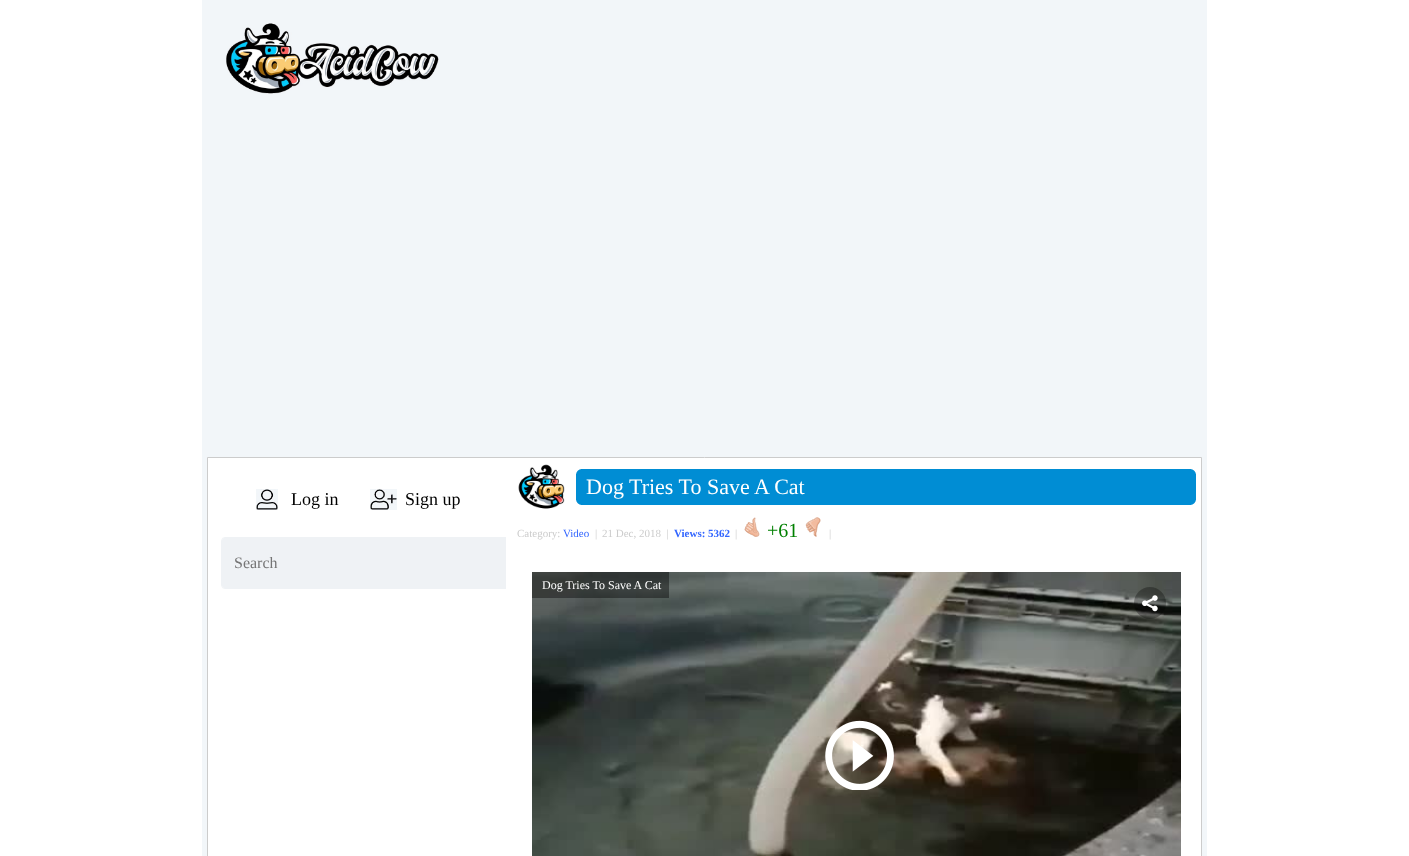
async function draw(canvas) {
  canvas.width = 1409
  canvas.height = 856
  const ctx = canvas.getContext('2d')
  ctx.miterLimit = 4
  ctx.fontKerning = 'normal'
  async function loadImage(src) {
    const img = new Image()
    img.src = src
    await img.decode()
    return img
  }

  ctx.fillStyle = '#fff'
  ctx.fillRect(0, 0, 1409, 856)
  ctx.fillStyle = '#f2f6f9'
  ctx.fillRect(202, 0, 1005, 856)
  ctx.drawImage(await loadImage('image0.png'), 226, 23, 213, 71)
  ctx.fillStyle = '#fff'
  ctx.beginPath()
  ctx.rect(207.5, 457.5, 994, 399)
  ctx.fill()
  ctx.strokeStyle = '#ccc'
  ctx.stroke()
  ctx.drawImage(await loadImage('image1.png'), 256, 489, 22, 21)
  ctx.font = '18px Liberation Serif'
  ctx.fillStyle = '#000'
  ctx.fillText('Log in', 291, 505)
  ctx.drawImage(await loadImage('image2.png'), 370, 489, 27, 21)
  ctx.fillText('Sign up', 405, 505)
  ctx.fillStyle = '#eff2f5'
  ctx.beginPath()
  ctx.roundRect(222, 538, 284, 50, [3, 0, 0, 3])
  ctx.fill()
  ctx.save()
  ctx.beginPath()
  ctx.rect(221, 535, 285, 56)
  ctx.clip()
  ctx.beginPath()
  ctx.roundRect(221.5, 537.5, 310, 51, 3.5)
  ctx.strokeStyle = '#eff2f5'
  ctx.stroke()
  ctx.restore()
  ctx.font = '16px Liberation Serif'
  ctx.fillStyle = '#757575'
  ctx.fillText('Search', 234, 568)
  ctx.drawImage(await loadImage('image3.png'), 518, 464, 47, 45)
  ctx.fillStyle = '#3fa9de'
  ctx.fillRect(579, 469, 614, 1)
  ctx.fillStyle = '#91cdec'
  ctx.fillRect(1192, 469, 1, 1)
  ctx.fillRect(579, 469, 1, 1)
  ctx.fillStyle = '#008dd4'
  ctx.fillRect(581, 469, 610, 1)
  ctx.fillStyle = '#30a2dc'
  ctx.fillRect(577, 470, 618, 1)
  ctx.fillStyle = '#e5f3fa'
  ctx.fillRect(1194, 470, 1, 1)
  ctx.fillRect(577, 470, 1, 1)
  ctx.fillStyle = '#008dd4'
  ctx.fillRect(579, 470, 614, 1)
  ctx.fillRect(577, 471, 618, 1)
  ctx.fillStyle = '#30a2dc'
  ctx.fillRect(1194, 471, 1, 1)
  ctx.fillRect(577, 471, 1, 1)
  ctx.fillStyle = '#008dd4'
  ctx.fillRect(576, 472, 620, 2)
  ctx.fillStyle = '#91cdec'
  ctx.fillRect(1195, 472, 1, 1)
  ctx.fillRect(576, 472, 1, 1)
  ctx.fillStyle = '#3fa9de'
  ctx.fillRect(1195, 473, 1, 1)
  ctx.fillRect(576, 473, 1, 1)
  ctx.fillStyle = '#008dd4'
  ctx.fillRect(576, 474, 620, 28)
  ctx.font = '22px Liberation Serif'
  ctx.fillStyle = '#fff'
  ctx.fillText('Dog Tries To Save A Cat', 586, 494)
  ctx.fillStyle = '#3fa9de'
  ctx.fillRect(1195, 500, 1, 1)
  ctx.fillRect(576, 500, 1, 1)
  ctx.fillStyle = '#91cdec'
  ctx.fillRect(1195, 501, 1, 1)
  ctx.fillRect(576, 501, 1, 1)
  ctx.fillStyle = '#008dd4'
  ctx.fillRect(577, 502, 618, 1)
  ctx.fillStyle = '#30a2dc'
  ctx.fillRect(1194, 502, 1, 1)
  ctx.fillRect(577, 502, 1, 1)
  ctx.fillRect(577, 503, 618, 1)
  ctx.fillStyle = '#e5f3fa'
  ctx.fillRect(1194, 503, 1, 1)
  ctx.fillRect(577, 503, 1, 1)
  ctx.fillStyle = '#008dd4'
  ctx.fillRect(579, 503, 614, 1)
  ctx.fillStyle = '#3fa9de'
  ctx.fillRect(579, 504, 614, 1)
  ctx.fillStyle = '#91cdec'
  ctx.fillRect(1192, 504, 1, 1)
  ctx.fillRect(579, 504, 1, 1)
  ctx.fillStyle = '#008dd4'
  ctx.fillRect(581, 504, 610, 1)
  ctx.font = '11px Liberation Serif'
  ctx.fillStyle = '#ccc'
  ctx.fillText('Category:', 517, 537)
  ctx.fillStyle = '#36f'
  ctx.fillText('Video', 563, 537)
  ctx.fillStyle = '#ccc'
  ctx.fillText('|', 595, 537)
  ctx.fillText('21 Dec, 2018  |', 602, 537)
  ctx.font = 'bold 11px Liberation Serif'
  ctx.fillStyle = '#36f'
  ctx.fillText('Views: 5362', 674, 537)
  ctx.font = '11px Liberation Serif'
  ctx.fillStyle = '#ccc'
  ctx.fillText('|', 735, 537)
  ctx.drawImage(await loadImage('image4.png'), 744, 517, 16, 20)
  ctx.font = '20px Liberation Serif'
  ctx.fillStyle = '#008000'
  ctx.fillText('+61', 767, 537)
  ctx.drawImage(await loadImage('image5.png'), 805, 517, 16, 20)
  ctx.font = '11px Liberation Serif'
  ctx.fillStyle = '#ccc'
  ctx.fillText('|', 829, 537)
  ctx.drawImage(await loadImage('image6.png'), 532, 572, 649, 284)
  ctx.fillStyle = '#00000066'
  ctx.fillRect(532, 572, 137, 26)
  ctx.font = '12px Liberation Serif'
  ctx.fillStyle = '#fff'
  ctx.fillText('Dog Tries To Save A Cat', 542, 589)
  ctx.fillStyle = '#0000004d'
  ctx.beginPath()
  ctx.arc(1150, 603, 16, 0, 2 * Math.PI)
  ctx.fill()
  ctx.drawImage(await loadImage('image7.png'), 1142, 595, 16, 17)
  ctx.drawImage(await loadImage('image8.png'), 825, 720, 69, 70)
}

draw(document.querySelector('canvas'))
